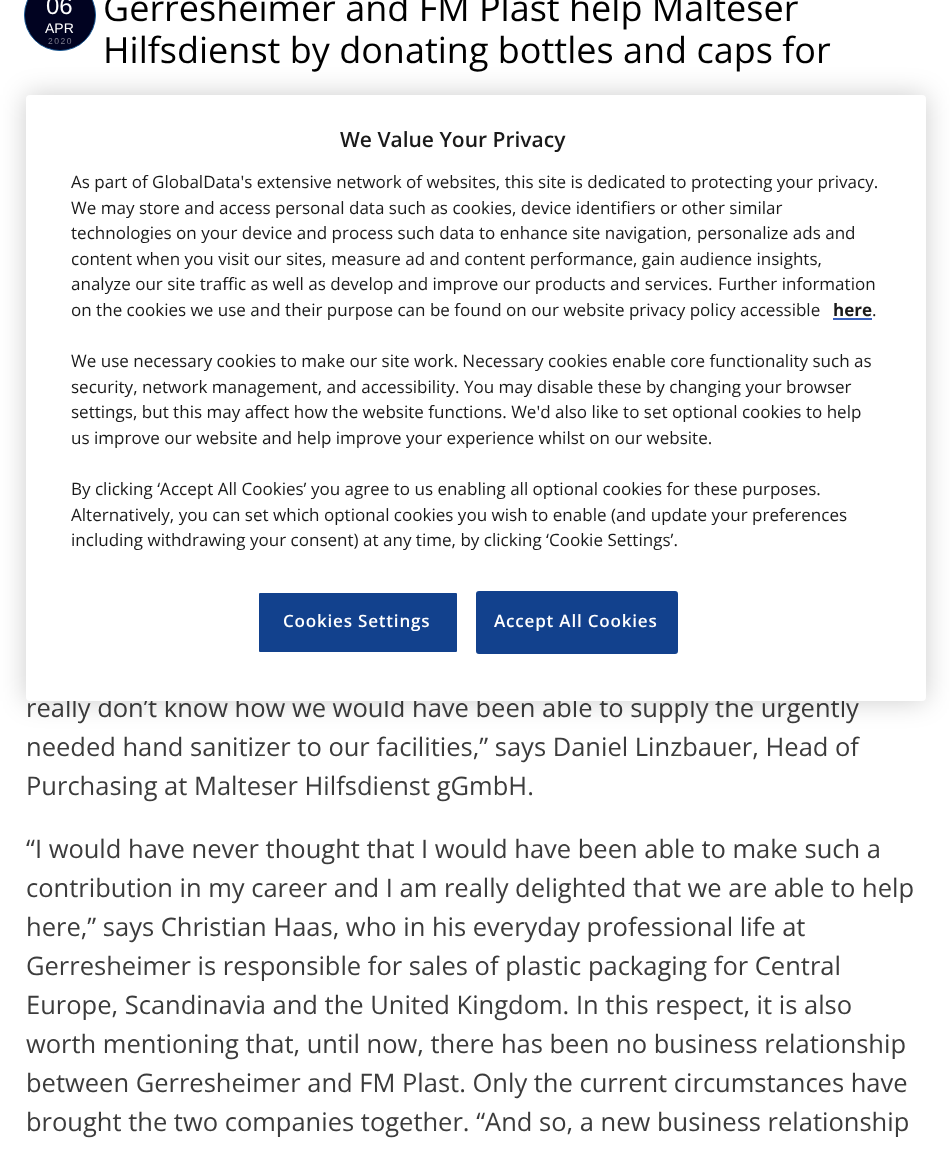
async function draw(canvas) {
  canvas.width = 950
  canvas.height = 1151
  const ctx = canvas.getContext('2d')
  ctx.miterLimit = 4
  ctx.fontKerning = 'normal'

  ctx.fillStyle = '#fff'
  ctx.fillRect(0, 0, 950, 1151)
  ctx.fillStyle = '#010321'
  ctx.beginPath()
  ctx.arc(60, 15, 35.55, 0, 2 * Math.PI)
  ctx.fill()
  ctx.strokeStyle = '#125592'
  ctx.lineWidth = 0.9
  ctx.stroke()
  ctx.font = '24px Liberation Sans'
  ctx.fillStyle = '#fff'
  ctx.fillText('06', 46, 14)
  ctx.font = '14px Liberation Sans'
  ctx.fillText('APR', 45, 33)
  ctx.letterSpacing = '1.5px'
  ctx.font = '8.5px Liberation Sans'
  ctx.fillStyle = '#808190'
  ctx.fillText('2020', 48, 44)
  ctx.letterSpacing = '0px'
  ctx.font = '36px Open Sans'
  ctx.fillStyle = '#000'
  ctx.fillText('Gerresheimer and FM Plast help Malteser', 103, 21)
  ctx.fillText('Hilfsdienst by donating bottles and caps for', 103, 63)
  ctx.font = '25.5px Open Sans'
  ctx.fillStyle = '#3c3c3c'
  ctx.fillText('really don’t know how we would have been able to supply the urgently', 26, 717)
  ctx.fillText('needed hand sanitizer to our facilities,” says Daniel Linzbauer, Head of', 26, 756)
  ctx.fillText('Purchasing at Malteser Hilfsdienst gGmbH.', 26, 795)
  ctx.fillText('“I would have never thought that I would have been able to make such a', 26, 858)
  ctx.fillText('contribution in my career and I am really delighted that we are able to help', 26, 897)
  ctx.fillText('here,” says Christian Haas, who in his everyday professional life at', 26, 936)
  ctx.fillText('Gerresheimer is responsible for sales of plastic packaging for Central', 26, 975)
  ctx.fillText('Europe, Scandinavia and the United Kingdom. In this respect, it is also', 26, 1014)
  ctx.fillText('worth mentioning that, until now, there has been no business relationship', 26, 1053)
  ctx.fillText('between Gerresheimer and FM Plast. Only the current circumstances have', 26, 1092)
  ctx.fillText('brought the two companies together. “And so, a new business relationship', 26, 1131)
  ctx.fillStyle = '#00000033'
  ctx.filter = 'blur(13.5px)'
  ctx.beginPath()
  ctx.roundRect(26, 95, 900, 606, 4)
  ctx.fill()
  ctx.filter = 'none'
  ctx.fillStyle = '#fff'
  ctx.beginPath()
  ctx.roundRect(26, 95, 900, 606, 4)
  ctx.fill()
  ctx.font = '600 21px Open Sans'
  ctx.fillStyle = '#1a1a1a'
  ctx.fillText('We Value Your Privacy', 340, 147)
  ctx.font = '17.05px Open Sans'
  ctx.fillText('As part of GlobalData\'s extensive network of websites, this site is dedicated to protecting your privacy.', 71, 188)
  ctx.fillText('We may store and access personal data such as cookies, device identifiers or other similar', 71, 214)
  ctx.fillText('technologies on your device and process such data to enhance site navigation,', 71, 239)
  ctx.fillText('personalize ads and', 697, 239)
  ctx.fillText('content when you visit our sites, measure ad and content performance, gain audience insights,', 71, 265)
  ctx.fillText('analyze our site traffic as well as develop and improve our products and services.', 71, 290)
  ctx.fillText('Further information', 718, 290)
  ctx.fillText('on the cookies we use and their purpose can be found on our website privacy policy accessible', 71, 316)
  ctx.font = 'bold 17.05px Open Sans'
  ctx.fillText('here', 833, 316)
  ctx.fillStyle = '#3860be'
  ctx.fillRect(833, 318, 39, 2)
  ctx.font = '17.05px Open Sans'
  ctx.fillStyle = '#1a1a1a'
  ctx.fillText('.', 872, 316)
  ctx.fillText('We use necessary cookies to make our site work. Necessary cookies enable core functionality such as', 71, 367)
  ctx.fillText('security, network management, and accessibility. You may disable these by changing your browser', 71, 393)
  ctx.fillText('settings, but this may affect how the website functions. We\'d also like to set optional cookies to help', 71, 418)
  ctx.fillText('us improve our website and help improve your experience whilst on our website.', 71, 444)
  ctx.fillText('By clicking ‘Accept All Cookies’ you agree to us enabling all optional cookies for these purposes.', 71, 495)
  ctx.fillText('Alternatively, you can set which optional cookies you wish to enable (and update your preferences', 71, 521)
  ctx.fillText('including withdrawing your consent) at any time, by clicking ‘Cookie Settings’.', 71, 546)
  ctx.fillStyle = '#12418d'
  ctx.beginPath()
  ctx.roundRect(258, 592, 200, 61, 2)
  ctx.fill()
  ctx.strokeStyle = '#fff'
  ctx.lineWidth = 2
  ctx.stroke()
  ctx.letterSpacing = '0.8px'
  ctx.font = '600 17.05px Open Sans'
  ctx.fillStyle = '#fff'
  ctx.fillText('Cookies Settings', 283, 627)
  ctx.fillStyle = '#12418d'
  ctx.beginPath()
  ctx.roundRect(477, 592, 200, 61, 2)
  ctx.fill()
  ctx.strokeStyle = '#12418d'
  ctx.stroke()
  ctx.fillStyle = '#fff'
  ctx.fillText('Accept All Cookies', 494, 627)
}

draw(document.querySelector('canvas'))
